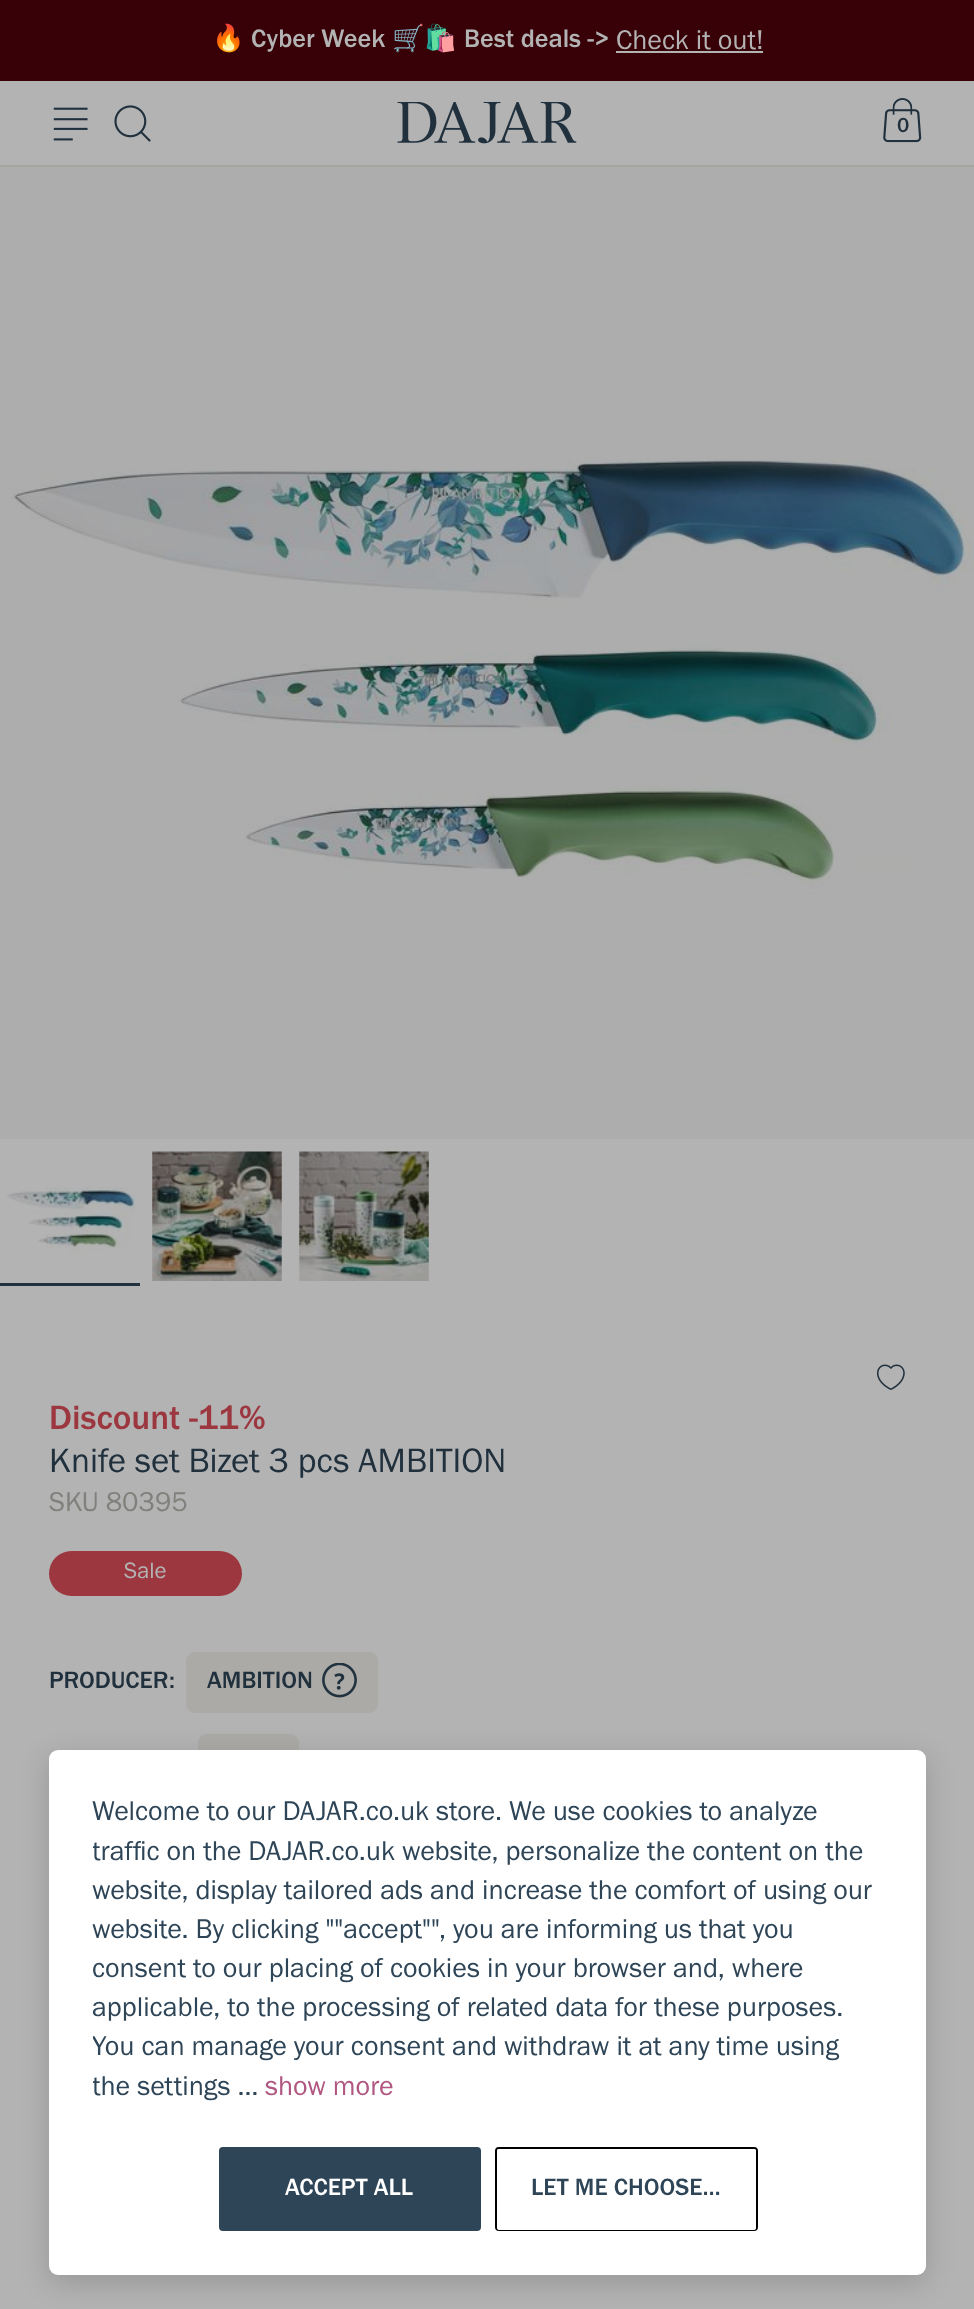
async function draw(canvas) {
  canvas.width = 974
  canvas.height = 2309
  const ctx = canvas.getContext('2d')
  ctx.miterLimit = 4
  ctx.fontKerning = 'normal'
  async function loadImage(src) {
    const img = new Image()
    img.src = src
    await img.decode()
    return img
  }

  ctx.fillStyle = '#b3b3b3'
  ctx.fillRect(0, 0, 974, 2309)
  ctx.fillStyle = '#adadad'
  ctx.fillRect(0, 167, 974, 972)
  ctx.fillStyle = '#380108'
  ctx.fillRect(0, 0, 974, 81)
  ctx.font = '26.25px Noto Color Emoji'
  ctx.fillStyle = '#b3b3b3'
  ctx.fillText('🔥', 212, 47)
  ctx.font = '26.25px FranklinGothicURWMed'
  ctx.fillText('Cyber Week', 251, 47)
  ctx.font = '26.25px Noto Color Emoji'
  ctx.fillText('🛒🛍️', 392, 47)
  ctx.font = '26.25px FranklinGothicURWMed'
  ctx.fillText('Best deals ->', 464, 47)
  ctx.font = '28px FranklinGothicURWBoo'
  ctx.fillText('Check it out!', 616, 49)
  ctx.fillRect(616, 51, 147, 2)
  ctx.fillStyle = '#a7a5a0'
  ctx.fillRect(0, 165, 974, 2)
  ctx.drawImage(await loadImage('image0.png'), 53, 107, 35, 34)
  ctx.drawImage(await loadImage('image1.png'), 114, 105, 37, 37)
  ctx.drawImage(await loadImage('image2.png'), 397, 102, 180, 42)
  ctx.drawImage(await loadImage('image3.png'), 883, 98, 39, 45)
  ctx.font = '21px FranklinGothicURWMed'
  ctx.fillStyle = '#20303d'
  ctx.fillText('0', 897, 132)
  ctx.drawImage(await loadImage('image4.png'), 11, 458, 963, 437)
  ctx.drawImage(await loadImage('image5.png'), 6, 1187, 129, 67)
  ctx.drawImage(await loadImage('image6.png'), 152, 1151, 130, 130)
  ctx.drawImage(await loadImage('image7.png'), 299, 1151, 130, 130)
  ctx.fillRect(0, 1283, 140, 3)
  ctx.drawImage(await loadImage('image8.png'), 877, 1364, 28, 26)
  ctx.font = '35px FranklinGothicURWMed'
  ctx.fillStyle = '#9c3740'
  ctx.fillText('Discount -11%', 49, 1429)
  ctx.font = '35px FranklinGothicURWBoo'
  ctx.fillStyle = '#20303d'
  ctx.fillText('Knife set Bizet 3 pcs AMBITION', 49, 1472)
  ctx.font = '28px FranklinGothicURWBoo'
  ctx.fillStyle = '#81807c'
  ctx.fillText('SKU 80395', 49, 1511)
  ctx.fillStyle = '#9c3740'
  ctx.beginPath()
  ctx.roundRect(49, 1551, 193, 45, 22.5)
  ctx.fill()
  ctx.font = '23px FranklinGothicURWBoo'
  ctx.fillStyle = '#b3b3b3'
  ctx.fillText('Sale', 124, 1578)
  ctx.font = '24.5px FranklinGothicURWMed'
  ctx.fillStyle = '#20303d'
  ctx.fillText('PRODUCER', 49, 1688)
  ctx.fillText(':', 169, 1688)
  ctx.fillStyle = '#abaaa7'
  ctx.beginPath()
  ctx.roundRect(186, 1652, 192, 61, 9)
  ctx.fill()
  ctx.fillStyle = '#20303d'
  ctx.fillText('AMBITION', 207, 1688)
  ctx.drawImage(await loadImage('image9.png'), 322, 1663, 35, 35)
  ctx.fillStyle = '#abaaa7'
  ctx.beginPath()
  ctx.roundRect(198, 1734, 101, 62, 9)
  ctx.fill()
  ctx.fillStyle = '#00000029'
  ctx.filter = 'blur(14px)'
  ctx.beginPath()
  ctx.roundRect(49, 1757, 877, 525, 9)
  ctx.fill()
  ctx.filter = 'none'
  ctx.fillStyle = '#fff'
  ctx.beginPath()
  ctx.roundRect(49, 1750, 877, 525, 9)
  ctx.fill()
  ctx.font = '28px FranklinGothicURWBoo'
  ctx.fillStyle = '#2e4557'
  ctx.fillText('Welcome to our DAJAR.co.uk store. We use cookies to analyze', 92, 1820)
  ctx.save()
  ctx.beginPath()
  ctx.rect(93, 1792, 789, 313)
  ctx.clip()
  ctx.fillText('traffic on the DAJAR.co.uk website, personalize the content on the', 92, 1860)
  ctx.restore()
  ctx.fillText('website, display tailored ads and increase the comfort of using our', 92, 1899)
  ctx.fillText('website. By clicking ""accept"", you are informing us that you', 92, 1938)
  ctx.fillText('consent to our placing of cookies in your browser and, where', 92, 1977)
  ctx.fillText('applicable, to the processing of related data for these purposes.', 92, 2016)
  ctx.save()
  ctx.beginPath()
  ctx.rect(93, 1792, 789, 313)
  ctx.clip()
  ctx.fillText('You can manage your consent and withdraw it at any time using', 92, 2055)
  ctx.fillText('the settings …', 92, 2095)
  ctx.restore()
  ctx.fillStyle = '#b05781'
  ctx.fillText('show more', 265, 2095)
  ctx.fillStyle = '#2e4557'
  ctx.beginPath()
  ctx.roundRect(219, 2147, 262, 84, 4)
  ctx.fill()
  ctx.font = '24.5px FranklinGothicURWMed'
  ctx.fillStyle = '#fff'
  ctx.fillText('ACCEPT ALL', 285, 2195)
  ctx.beginPath()
  ctx.roundRect(496, 2148, 261, 82, 3)
  ctx.strokeStyle = '#000'
  ctx.lineWidth = 2
  ctx.stroke()
  ctx.beginPath()
  ctx.roundRect(497, 2149, 259, 81, 2)
  ctx.fill()
  ctx.fillStyle = '#2e4557'
  ctx.fillText('LET ME CHOOSE…', 531, 2195)
}

draw(document.querySelector('canvas'))
